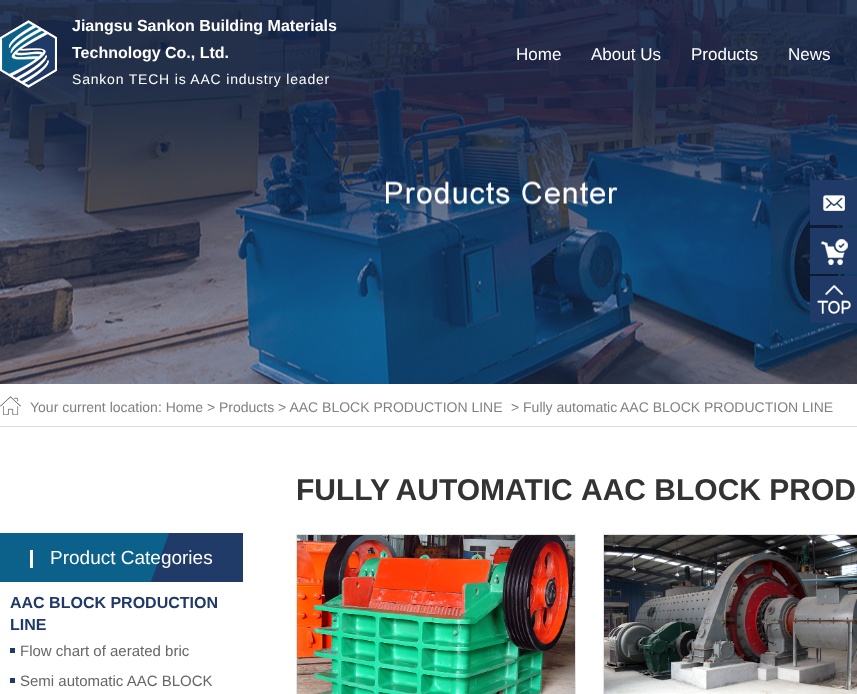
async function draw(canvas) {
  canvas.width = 857
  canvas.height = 694
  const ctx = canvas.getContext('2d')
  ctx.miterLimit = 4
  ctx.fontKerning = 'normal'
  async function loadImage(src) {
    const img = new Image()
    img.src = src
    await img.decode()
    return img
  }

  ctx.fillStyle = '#fff'
  ctx.fillRect(0, 0, 857, 694)
  ctx.drawImage(await loadImage('image0.png'), 0, 0, 857, 384)
  ctx.drawImage(await loadImage('image1.png'), 0, 20, 57, 68)
  ctx.font = 'bold 16px Liberation Sans'
  ctx.fillText('Jiangsu Sankon Building Materials', 72, 31)
  ctx.fillText('Technology Co., Ltd.', 72, 58)
  ctx.letterSpacing = '0.8px'
  ctx.font = '14px Liberation Sans'
  ctx.fillText('Sankon TECH is AAC industry leader', 72, 84)
  ctx.letterSpacing = '0px'
  ctx.font = '17px Liberation Sans'
  ctx.fillText('Home', 516, 60)
  ctx.fillText('About Us', 591, 60)
  ctx.fillText('Products', 691, 60)
  ctx.fillText('News', 788, 60)
  ctx.fillStyle = '#203a68'
  ctx.fillRect(810, 180, 47, 45)
  ctx.drawImage(await loadImage('image2.png'), 823, 195, 22, 16)
  ctx.fillRect(810, 228, 47, 46)
  ctx.drawImage(await loadImage('image3.png'), 821, 239, 27, 26)
  ctx.fillRect(810, 276, 47, 47)
  ctx.drawImage(await loadImage('image4.png'), 817, 285, 34, 29)
  ctx.fillStyle = '#dbdbdb'
  ctx.fillRect(0, 426, 857, 1)
  ctx.drawImage(await loadImage('image5.png'), 0, 396, 21, 19)
  ctx.font = '14px Liberation Sans'
  ctx.fillStyle = '#808080'
  ctx.fillText('Your current location: Home > Products > AAC BLOCK PRODUCTION LINE', 30, 412)
  ctx.fillText('> Fully automatic', 511, 412)
  ctx.fillText('AAC BLOCK PRODUCTION LINE', 620, 412)
  ctx.wordSpacing = '-1px'
  ctx.font = 'bold 30px Liberation Sans'
  ctx.fillStyle = '#333'
  ctx.fillText('FULLY AUTOMATIC', 296, 500)
  ctx.wordSpacing = '0px'
  ctx.fillText('AAC BLOCK PROD', 581, 500)
  ctx.strokeStyle = '#e3e3e3'
  ctx.strokeRect(296.5, 534.5, 279, 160)
  ctx.drawImage(await loadImage('image6.png'), 297, 535, 278, 159)
  ctx.strokeRect(603.5, 534.5, 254, 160)
  ctx.drawImage(await loadImage('image7.png'), 604, 535, 253, 159)
  ctx.drawImage(await loadImage('image8.png'), 0, 533, 243, 49)
  ctx.font = '19px Liberation Sans'
  ctx.fillStyle = '#fff'
  ctx.fillText('Product Categories', 50, 564)
  ctx.font = 'bold 16px Liberation Sans'
  ctx.fillStyle = '#203a68'
  ctx.fillText('AAC BLOCK PRODUCTION', 10, 608)
  ctx.fillText('LINE', 10, 630)
  ctx.fillRect(10, 648, 5, 5)
  ctx.font = '15px Liberation Sans'
  ctx.fillStyle = '#666'
  ctx.fillText('Flow chart of aerated bric', 20, 656)
  ctx.fillStyle = '#203a68'
  ctx.fillRect(10, 678, 5, 5)
  ctx.fillStyle = '#666'
  ctx.fillText('Semi automatic AAC BLOCK', 20, 686)
}

draw(document.querySelector('canvas'))
